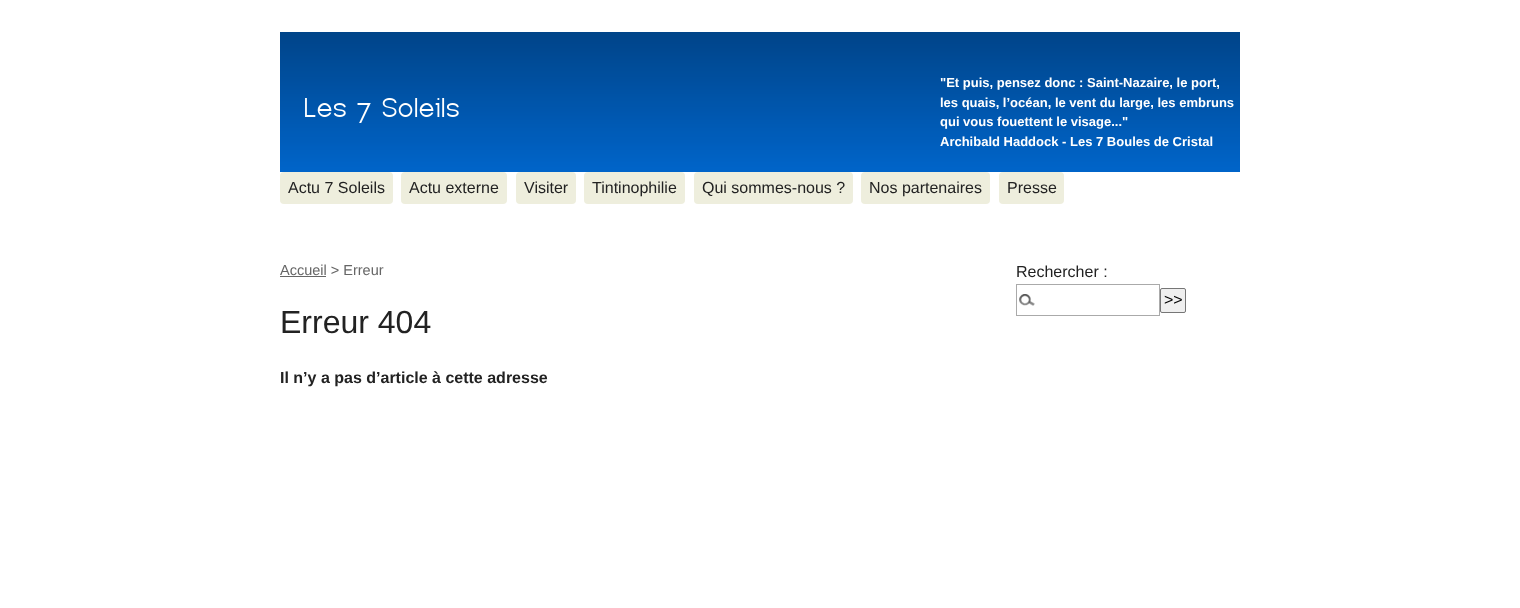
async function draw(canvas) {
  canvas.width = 1520
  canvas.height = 608
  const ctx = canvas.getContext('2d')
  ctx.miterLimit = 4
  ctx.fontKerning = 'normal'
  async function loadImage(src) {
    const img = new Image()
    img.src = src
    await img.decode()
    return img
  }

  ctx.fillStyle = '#fff'
  ctx.fillRect(0, 0, 1520, 608)
  ctx.drawImage(await loadImage('image0.png'), 280, 32, 960, 140)
  ctx.drawImage(await loadImage('image1.png'), 305, 98, 154, 25)
  ctx.font = 'bold 13px Liberation Sans'
  ctx.fillText('"Et puis, pensez donc : Saint-Nazaire, le port,', 940, 87)
  ctx.fillText('les quais, l’océan, le vent du large, les embruns', 940, 107)
  ctx.fillText('qui vous fouettent le visage..."', 940, 126)
  ctx.fillText('Archibald Haddock - Les 7 Boules de Cristal', 940, 146)
  ctx.fillStyle = '#eed'
  ctx.beginPath()
  ctx.roundRect(280, 172, 113, 32, 4)
  ctx.fill()
  ctx.font = '16px Liberation Sans'
  ctx.fillStyle = '#222'
  ctx.fillText('Actu 7 Soleils', 288, 193)
  ctx.fillStyle = '#eed'
  ctx.beginPath()
  ctx.roundRect(401, 172, 106, 32, 4)
  ctx.fill()
  ctx.fillStyle = '#222'
  ctx.fillText('Actu externe', 409, 193)
  ctx.fillStyle = '#eed'
  ctx.beginPath()
  ctx.roundRect(516, 172, 60, 32, 4)
  ctx.fill()
  ctx.fillStyle = '#222'
  ctx.fillText('Visiter', 524, 193)
  ctx.fillStyle = '#eed'
  ctx.beginPath()
  ctx.roundRect(584, 172, 101, 32, 4)
  ctx.fill()
  ctx.fillStyle = '#222'
  ctx.fillText('Tintinophilie', 592, 193)
  ctx.fillStyle = '#eed'
  ctx.beginPath()
  ctx.roundRect(694, 172, 159, 32, 4)
  ctx.fill()
  ctx.fillStyle = '#222'
  ctx.fillText('Qui sommes-nous ?', 702, 193)
  ctx.fillStyle = '#eed'
  ctx.beginPath()
  ctx.roundRect(861, 172, 129, 32, 4)
  ctx.fill()
  ctx.fillStyle = '#222'
  ctx.fillText('Nos partenaires', 869, 193)
  ctx.fillStyle = '#eed'
  ctx.beginPath()
  ctx.roundRect(999, 172, 65, 32, 4)
  ctx.fill()
  ctx.fillStyle = '#222'
  ctx.fillText('Presse', 1007, 193)
  ctx.font = '14.5px Liberation Sans'
  ctx.fillStyle = '#666'
  ctx.fillText('Accueil > Erreur', 280, 275)
  ctx.fillRect(280, 276, 46, 1)
  ctx.font = '32px Liberation Sans'
  ctx.fillStyle = '#222'
  ctx.fillText('Erreur 404', 280, 333)
  ctx.font = 'bold 16px Liberation Sans'
  ctx.fillText('Il n’y a pas d’article à cette adresse', 280, 383)
  ctx.font = '16px Liberation Sans'
  ctx.fillText('Rechercher :', 1016, 277)
  ctx.drawImage(await loadImage('image2.png'), 1019, 294, 16, 12)
  ctx.strokeStyle = '#aaa'
  ctx.strokeRect(1016.5, 284.5, 143, 31)
  ctx.fillStyle = '#efefef'
  ctx.beginPath()
  ctx.roundRect(1160.5, 288.5, 25, 24, 1.5)
  ctx.fill()
  ctx.strokeStyle = '#767676'
  ctx.stroke()
  ctx.fillStyle = '#000'
  ctx.fillText('>>', 1164, 305)
}

draw(document.querySelector('canvas'))
